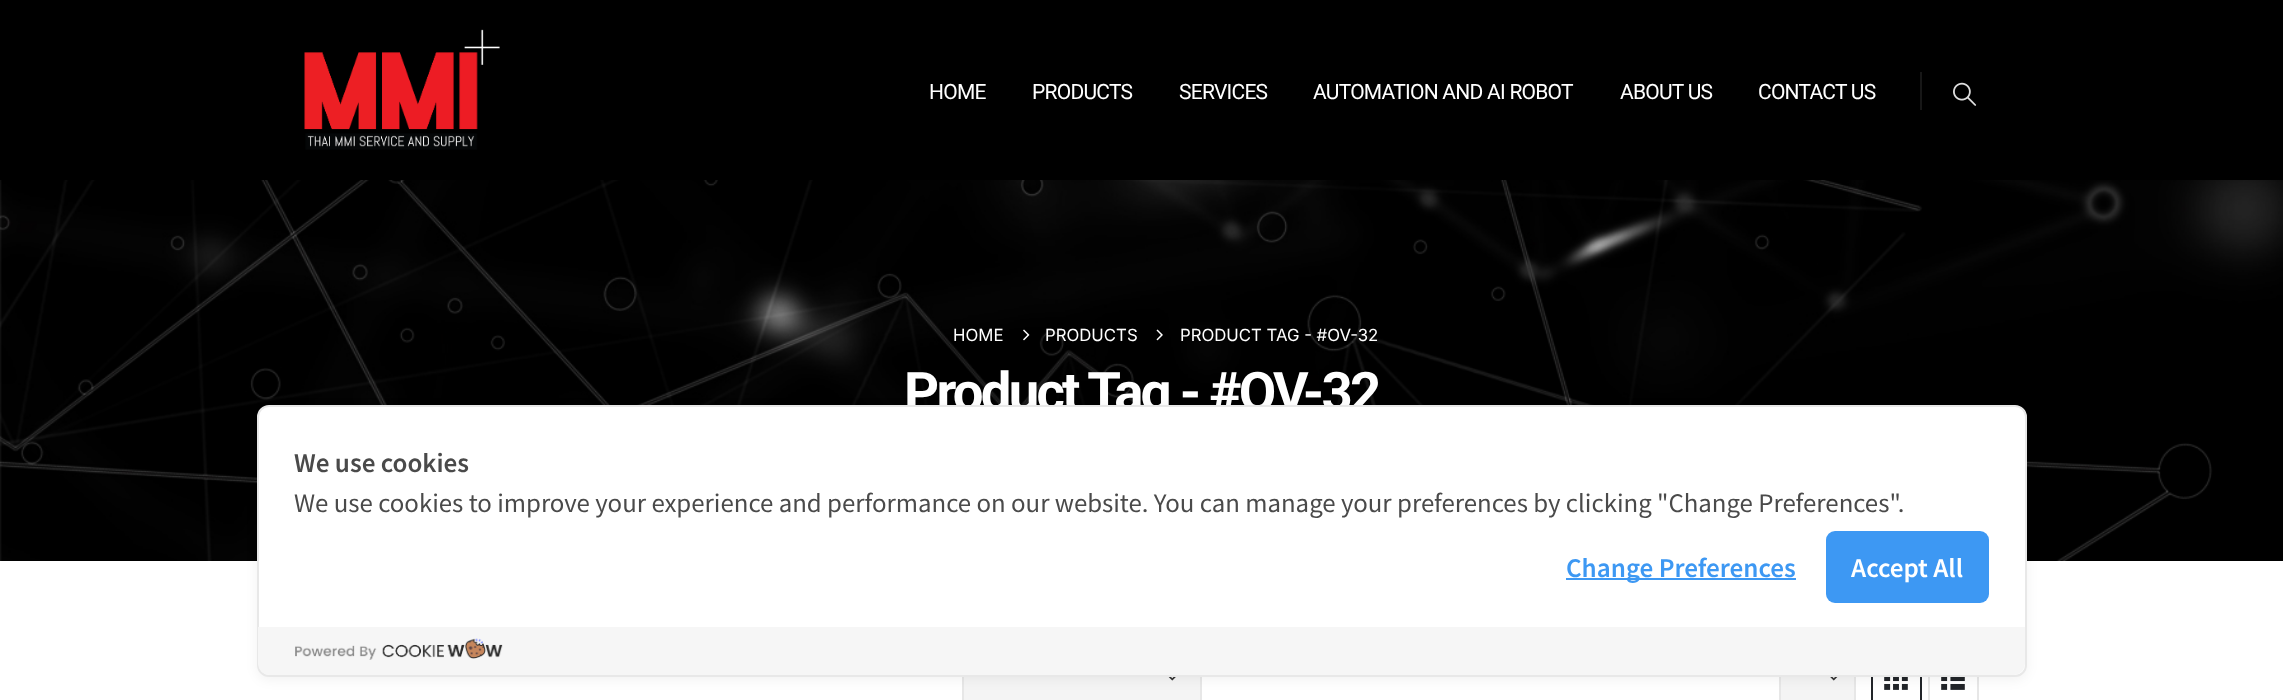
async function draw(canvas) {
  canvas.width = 2283
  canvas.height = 700
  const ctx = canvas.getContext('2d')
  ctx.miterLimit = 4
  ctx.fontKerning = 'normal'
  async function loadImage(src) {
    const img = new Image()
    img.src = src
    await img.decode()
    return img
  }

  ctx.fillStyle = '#fff'
  ctx.fillRect(0, 0, 2283, 700)
  ctx.fillStyle = '#000'
  ctx.fillRect(0, 0, 2283, 180)
  ctx.drawImage(await loadImage('image0.png'), 304, 29, 196, 121)
  ctx.letterSpacing = '-0.75px'
  ctx.font = '21px Roboto'
  ctx.fillStyle = '#fff'
  ctx.fillText('HOME', 929, 99)
  ctx.fillText('PRODUCTS', 1032, 99)
  ctx.fillText('SERVICES', 1179, 99)
  ctx.fillText('AUTOMATION AND AI ROBOT', 1313, 99)
  ctx.fillText('ABOUT US', 1620, 99)
  ctx.fillText('CONTACT US', 1758, 99)
  ctx.fillStyle = '#171717'
  ctx.fillRect(1920, 72, 2, 38)
  ctx.drawImage(await loadImage('image1.png'), 1953, 82, 24, 24)
  ctx.drawImage(await loadImage('image2.png'), 0, 180, 2283, 381)
  ctx.letterSpacing = '0px'
  ctx.font = '16.75px Inter'
  ctx.fillStyle = '#fff'
  ctx.fillText('HOME', 953, 341)
  ctx.drawImage(await loadImage('image3.png'), 1023, 329, 7, 12)
  ctx.fillText('PRODUCTS', 1045, 341)
  ctx.drawImage(await loadImage('image4.png'), 1156, 329, 7, 12)
  ctx.fillText('PRODUCT TAG - #OV-32', 1180, 341)
  ctx.letterSpacing = '-2.75px'
  ctx.font = 'bold 54.5px Roboto'
  ctx.fillText('Product Tag - #OV-32', 904, 411)
  ctx.fillStyle = '#f4f4f4'
  ctx.fillRect(964, 677, 236, 23)
  ctx.drawImage(await loadImage('image5.png'), 1168, 677, 8, 4)
  ctx.strokeStyle = '#e7e7e7'
  ctx.lineWidth = 2
  ctx.strokeRect(963, 652, 238, 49)
  ctx.fillRect(1781, 677, 73, 23)
  ctx.drawImage(await loadImage('image6.png'), 1830, 677, 8, 4)
  ctx.strokeRect(1780, 652, 75, 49)
  ctx.strokeStyle = '#222529'
  ctx.strokeRect(1872, 652, 49, 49)
  ctx.drawImage(await loadImage('image7.png'), 1884, 677, 24, 13)
  ctx.strokeStyle = '#e7e7e7'
  ctx.strokeRect(1929, 652, 49, 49)
  ctx.drawImage(await loadImage('image8.png'), 1941, 677, 24, 13)
  ctx.fillStyle = '#0000000d'
  ctx.filter = 'blur(6px)'
  ctx.beginPath()
  ctx.roundRect(257, 408, 1770, 272, 12)
  ctx.fill()
  ctx.filter = 'none'
  ctx.fillStyle = '#fff'
  ctx.beginPath()
  ctx.roundRect(258, 406, 1768, 270, 11)
  ctx.fill()
  ctx.strokeStyle = '#e8e8e8'
  ctx.stroke()
  ctx.letterSpacing = '0px'
  ctx.font = '600 24px Noto Sans JP'
  ctx.fillStyle = '#4a4a4a'
  ctx.fillText('We use cookies', 294, 472)
  ctx.font = '24px Noto Sans JP'
  ctx.fillText('We use cookies to improve your experience and performance on our website. You can manage your preferences by clicking "Change Preferences".', 294, 512)
  ctx.fillStyle = '#3d98f3'
  ctx.fillRect(1566, 578, 230, 2)
  ctx.font = '600 24px Noto Sans JP'
  ctx.fillText('Change Preferences', 1566, 577)
  ctx.beginPath()
  ctx.roundRect(1826, 531, 163, 72, 9)
  ctx.fill()
  ctx.fillStyle = '#fff'
  ctx.fillText('Accept All', 1851, 577)
  ctx.fillStyle = '#f6f6f6'
  ctx.beginPath()
  ctx.roundRect(258, 627, 1767, 48, [0, 0, 12, 12])
  ctx.fill()
  ctx.drawImage(await loadImage('image9.png'), 295, 638, 208, 22)
}

draw(document.querySelector('canvas'))
